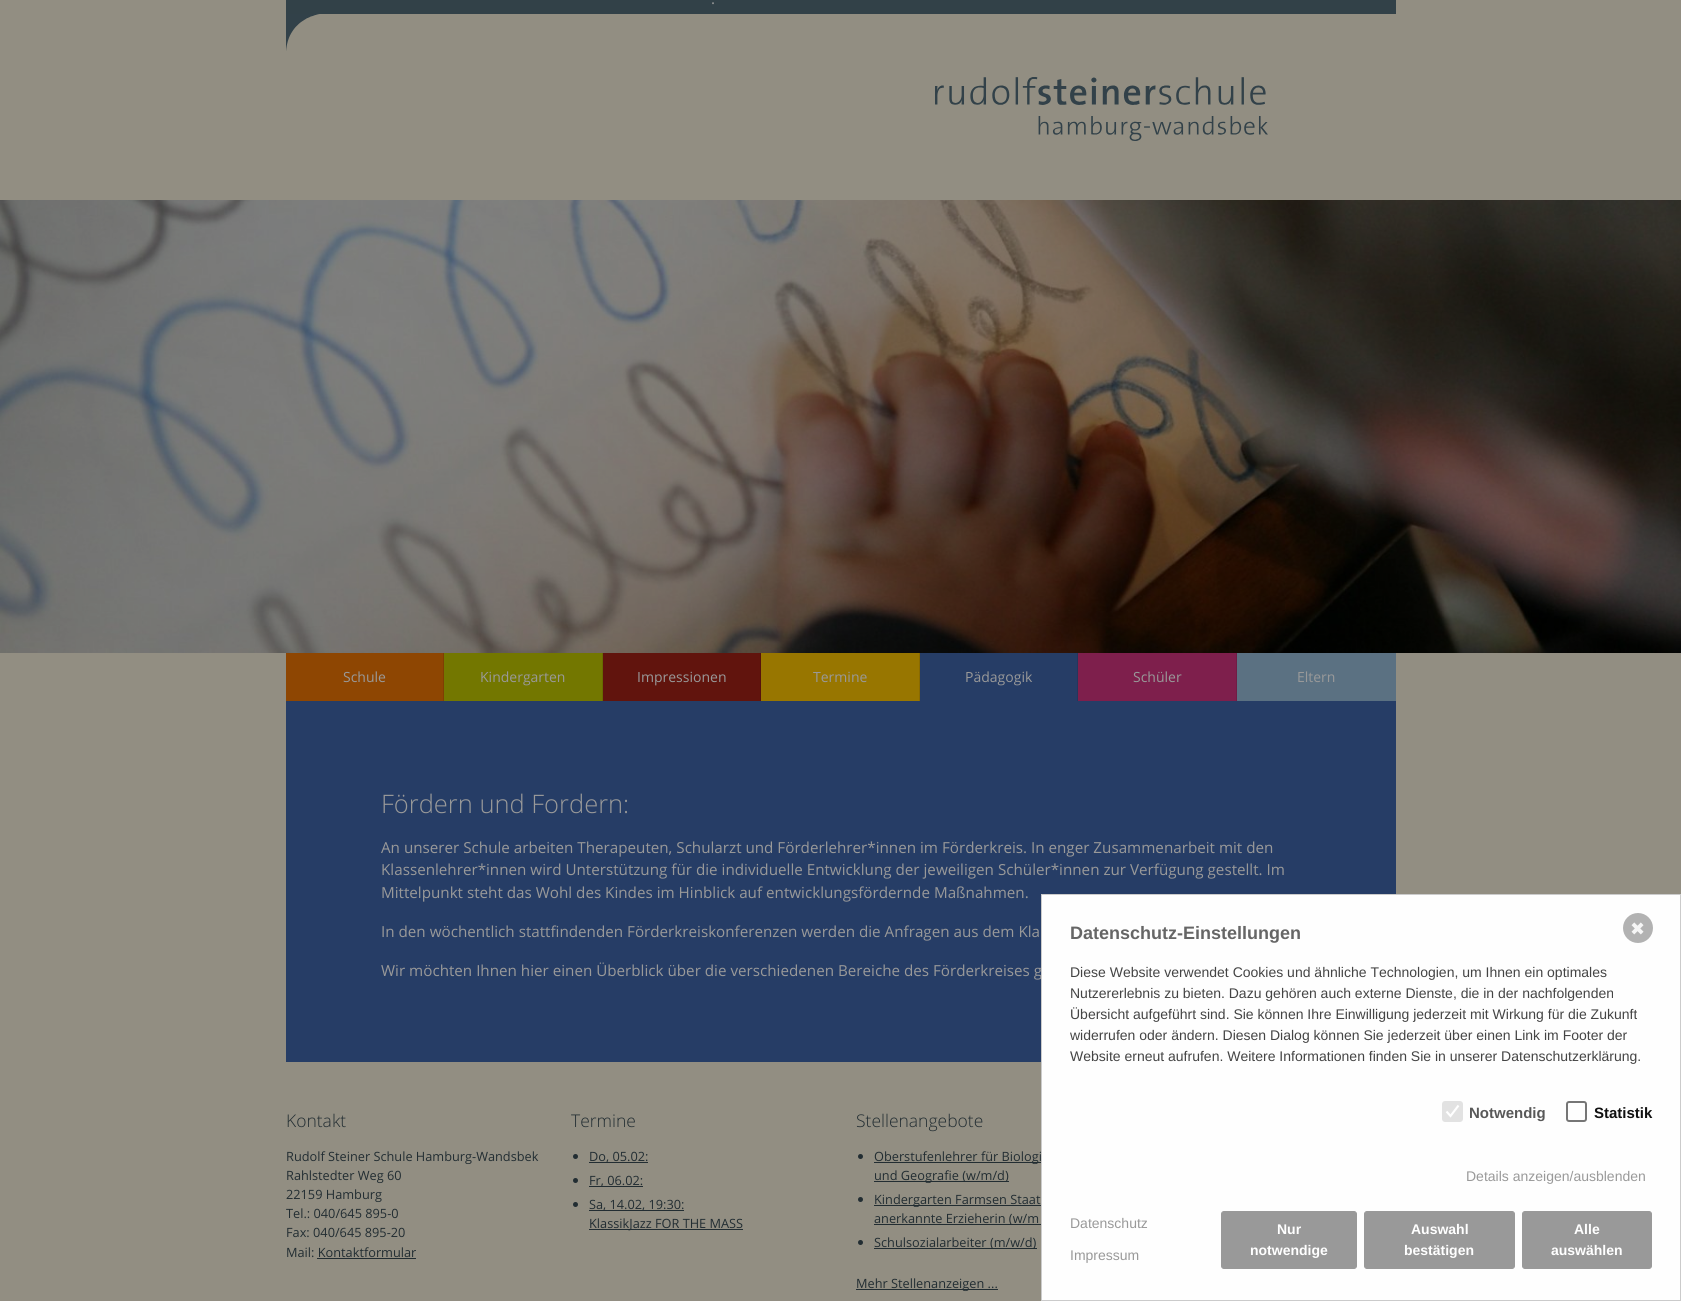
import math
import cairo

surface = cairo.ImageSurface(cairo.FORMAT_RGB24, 1681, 1301)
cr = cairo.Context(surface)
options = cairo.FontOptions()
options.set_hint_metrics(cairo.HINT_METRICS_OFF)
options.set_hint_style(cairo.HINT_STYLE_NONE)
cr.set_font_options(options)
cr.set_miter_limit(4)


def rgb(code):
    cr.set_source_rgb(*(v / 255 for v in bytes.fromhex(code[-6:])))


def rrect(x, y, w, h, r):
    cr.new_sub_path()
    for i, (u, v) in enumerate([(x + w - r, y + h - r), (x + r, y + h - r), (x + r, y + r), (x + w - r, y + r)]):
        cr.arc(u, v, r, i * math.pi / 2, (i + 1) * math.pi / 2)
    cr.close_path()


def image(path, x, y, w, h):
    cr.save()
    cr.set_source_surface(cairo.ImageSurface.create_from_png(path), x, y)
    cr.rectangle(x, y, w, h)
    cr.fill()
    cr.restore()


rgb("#928e82")
cr.paint()
rgb("#324148")
cr.rectangle(286, 0, 1110, 14)
cr.fill()
image("img/1.png", 286, 14, 34, 37)
image("img/2.png", 935, 77, 333, 64)
image("img/3.png", 0, 200, 1681, 453)
for x, y, w, h, color in [
    (286, 653, 157, 48, "#8e4602"),
    (443, 653, 1, 48, "#7f3e02"),
    (444, 653, 158, 48, "#737700"),
    (602, 653, 1, 48, "#686b00"),
    (603, 653, 157, 48, "#61140d"),
    (760, 653, 1, 48, "#57120c"),
    (761, 653, 158, 48, "#987600"),
    (919, 653, 1, 48, "#896a00"),
    (920, 653, 157, 48, "#263d66"),
    (1077, 653, 1, 48, "#23375c"),
    (1078, 653, 158, 48, "#7e1f4c"),
    (1236, 653, 1, 48, "#711c44"),
    (1237, 653, 159, 48, "#5b7182"),
    (286, 701, 1110, 361, "#263d66"),
    (317, 1258, 99, 1, "#222d32"),
]:
    rgb(color)
    cr.rectangle(x, y, w, h)
    cr.fill()
cr.arc(575.5, 1156.5, 2.5, 0, 2 * math.pi)
cr.fill()
cr.rectangle(589, 1162, 59, 1)
cr.fill()
cr.arc(575.5, 1180.5, 2.5, 0, 2 * math.pi)
cr.fill()
cr.rectangle(589, 1186, 54, 1)
cr.fill()
cr.arc(575.5, 1204.5, 2.5, 0, 2 * math.pi)
cr.fill()
cr.rectangle(589, 1210, 95, 1)
cr.fill()
cr.rectangle(589, 1229, 154, 1)
cr.fill()
cr.arc(860.5, 1156.5, 2.5, 0, 2 * math.pi)
cr.fill()
cr.rectangle(874, 1162, 167, 1)
cr.fill()
cr.rectangle(874, 1181, 135, 1)
cr.fill()
cr.arc(860.5, 1199.5, 2.5, 0, 2 * math.pi)
cr.fill()
cr.rectangle(874, 1205, 167, 1)
cr.fill()
cr.rectangle(874, 1224, 167, 1)
cr.fill()
cr.arc(860.5, 1242.5, 2.5, 0, 2 * math.pi)
cr.fill()
cr.rectangle(874, 1248, 163, 1)
cr.fill()
cr.rectangle(856, 1289, 142, 1)
cr.fill()
cr.select_font_face("Open Sans")
cr.set_font_size(15.2)
rgb("#999999")
cr.move_to(711, 4)
cr.show_text(".")
cr.set_font_size(14)
for x, y, s in [
    (343, 682, "Schule"),
    (480, 682, "Kindergarten"),
    (637, 682, "Impressionen"),
    (813, 682, "Termine"),
    (965, 682, "Pädagogik"),
    (1133, 682, "Schüler"),
    (1297, 682, "Eltern"),
]:
    cr.move_to(x, y)
    cr.show_text(s)
cr.select_font_face("Open Sans Light")
cr.set_font_size(25.5)
cr.move_to(381, 813)
cr.show_text("Fördern und Fordern:")
cr.select_font_face("Open Sans")
cr.set_font_size(15.2)
for x, y, s in [
    (381, 853, "An unserer Schule arbeiten Therapeuten, Schularzt und Förderlehrer*innen im Förderkreis. In enger Zusammenarbeit mit den"),
    (381, 875, "Klassenlehrer*innen wird Unterstützung für die individuelle Entwicklung der jeweiligen Schüler*innen zur Verfügung gestellt. Im"),
    (381, 898, "Mittelpunkt steht das Wohl des Kindes im Hinblick auf entwicklungsfördernde Maßnahmen."),
    (381, 937, "In den wöchentlich stattfindenden Förderkreiskonferenzen werden die Anfragen aus dem Kla"),
    (381, 976, "Wir möchten Ihnen hier einen Überblick über die verschiedenen Bereiche des Förderkreises g"),
]:
    cr.move_to(x, y)
    cr.show_text(s)
cr.select_font_face("Open Sans Light")
cr.set_font_size(17.5)
rgb("#222d32")
cr.move_to(286, 1127)
cr.show_text("Kontakt")
cr.select_font_face("Open Sans")
cr.set_font_size(12.75)
for x, y, s in [
    (286, 1161, "Rudolf Steiner Schule Hamburg-Wandsbek"),
    (286, 1180, "Rahlstedter Weg 60"),
    (286, 1199, "22159 Hamburg"),
    (286, 1218, "Tel.: 040/645 895-0"),
    (286, 1237, "Fax: 040/645 895-20"),
    (286, 1257, "Mail: Kontaktformular"),
]:
    cr.move_to(x, y)
    cr.show_text(s)
cr.select_font_face("Open Sans Light")
cr.set_font_size(17.5)
cr.move_to(571, 1127)
cr.show_text("Termine")
cr.select_font_face("Open Sans")
cr.set_font_size(12.75)
for x, y, s in [
    (589, 1161, "Do, 05.02:"),
    (589, 1185, "Fr, 06.02:"),
    (589, 1209, "Sa, 14.02, 19:30:"),
    (589, 1228, "KlassikJazz FOR THE MASS"),
]:
    cr.move_to(x, y)
    cr.show_text(s)
cr.select_font_face("Open Sans Light")
cr.set_font_size(17.5)
cr.move_to(856, 1127)
cr.show_text("Stellenangebote")
cr.select_font_face("Open Sans")
cr.set_font_size(12.75)
for x, y, s in [
    (874, 1161, "Oberstufenlehrer für Biologi"),
    (874, 1180, "und Geografie (w/m/d)"),
    (874, 1204, "Kindergarten Farmsen Staat"),
    (874, 1223, "anerkannte Erzieherin (w/m"),
    (874, 1247, "Schulsozialarbeiter (m/w/d)"),
    (856, 1288, "Mehr Stellenanzeigen ..."),
]:
    cr.move_to(x, y)
    cr.show_text(s)
rgb("#fefefe")
cr.rectangle(1041.5, 894.5, 639, 406)
cr.fill_preserve()
rgb("#cbcbcb")
cr.set_line_width(1)
cr.stroke()
rgb("#b2b2b2")
cr.arc(1638, 928, 14, 0, 2 * math.pi)
cr.fill_preserve()
cr.set_line_width(2)
cr.stroke()
cr.select_font_face("DejaVu Sans")
cr.set_font_size(18)
rgb("#f6f6f6")
cr.move_to(1630, 935)
cr.show_text("✖")
cr.select_font_face("Liberation Sans", cairo.FONT_SLANT_NORMAL, cairo.FONT_WEIGHT_BOLD)
rgb("#666666")
cr.move_to(1070, 939)
cr.show_text("Datenschutz-Einstellungen")
cr.select_font_face("Liberation Sans")
cr.set_font_size(14)
rgb("#444444")
for x, y, s in [
    (1070, 977, "Diese Website verwendet Cookies und ähnliche Technologien, um Ihnen ein optimales"),
    (1070, 998, "Nutzererlebnis zu bieten. Dazu gehören auch externe Dienste, die in der nachfolgenden"),
    (1070, 1019, "Übersicht aufgeführt sind. Sie können Ihre Einwilligung jederzeit mit Wirkung für die Zukunft"),
    (1070, 1040, "widerrufen oder ändern. Diesen Dialog können Sie jederzeit über einen Link im Footer der"),
    (1070, 1061, "Website erneut aufrufen. Weitere Informationen finden Sie in unserer Datenschutzerklärung."),
]:
    cr.move_to(x, y)
    cr.show_text(s)
rgb("#e2e2e2")
rrect(1442, 1101, 21, 21, 3)
cr.fill()
cr.new_path()
cr.move_to(1446.5, 1111.5)
cr.line_to(1450.5, 1116)
cr.line_to(1458.5, 1105.5)
rgb("#ffffff")
cr.set_line_width(2.1)
cr.stroke()
cr.select_font_face("Liberation Sans", cairo.FONT_SLANT_NORMAL, cairo.FONT_WEIGHT_BOLD)
cr.set_font_size(15)
rgb("#585858")
cr.move_to(1469, 1118)
cr.show_text("Notwendig")
rrect(1567, 1102, 19, 19, 2)
rgb("#767676")
cr.set_line_width(2)
cr.stroke()
rgb("#111111")
cr.move_to(1594, 1118)
cr.show_text("Statistik")
cr.select_font_face("Liberation Sans")
cr.set_font_size(14)
rgb("#999999")
for x, y, s in [
    (1466, 1181, "Details anzeigen/ausblenden"),
    (1070, 1228, "Datenschutz"),
    (1070, 1260, "Impressum"),
]:
    cr.move_to(x, y)
    cr.show_text(s)
rrect(1221.5, 1211.5, 135, 57, 2.5)
cr.fill_preserve()
cr.set_line_width(1)
cr.stroke()
cr.select_font_face("Liberation Sans", cairo.FONT_SLANT_NORMAL, cairo.FONT_WEIGHT_BOLD)
rgb("#ffffff")
cr.move_to(1277, 1234)
cr.show_text("Nur")
cr.move_to(1250, 1255)
cr.show_text("notwendige")
rgb("#999999")
rrect(1364.5, 1211.5, 150, 57, 2.5)
cr.fill_preserve()
cr.stroke()
rgb("#ffffff")
cr.move_to(1411, 1234)
cr.show_text("Auswahl")
cr.move_to(1404, 1255)
cr.show_text("bestätigen")
rgb("#999999")
rrect(1522.5, 1211.5, 129, 57, 2.5)
cr.fill_preserve()
cr.stroke()
rgb("#ffffff")
cr.move_to(1574, 1234)
cr.show_text("Alle")
cr.move_to(1551, 1255)
cr.show_text("auswählen")
surface.write_to_png("page.png")
